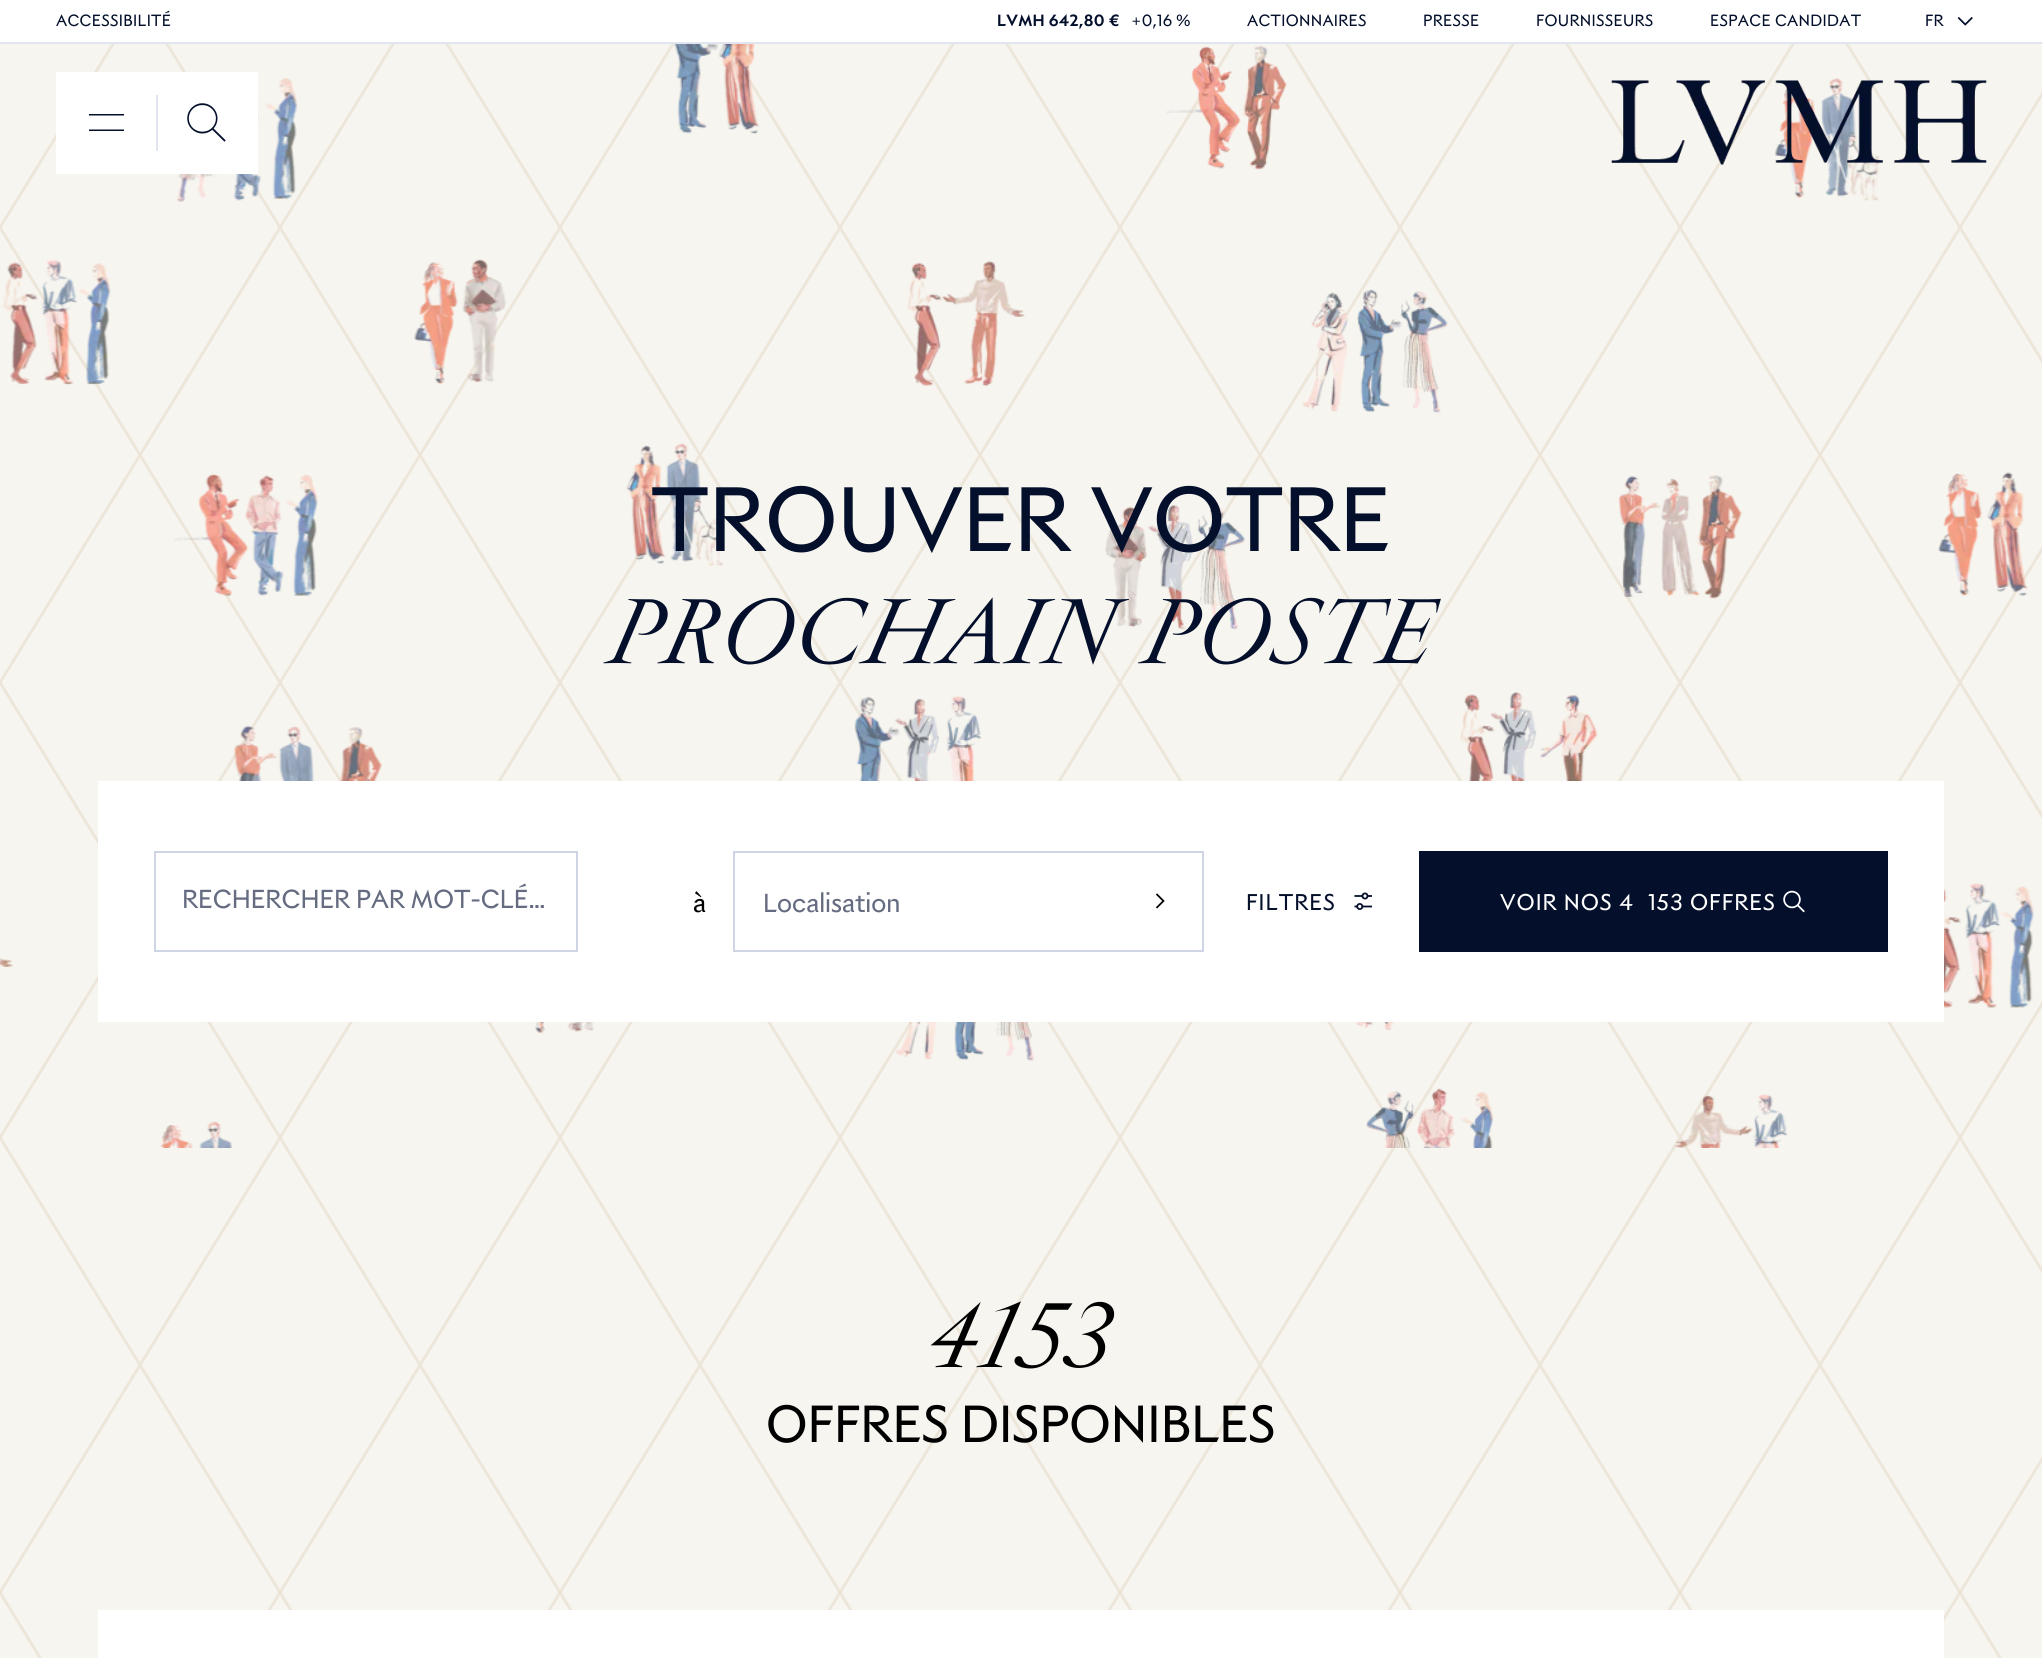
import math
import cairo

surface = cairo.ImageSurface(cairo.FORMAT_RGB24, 2042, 1658)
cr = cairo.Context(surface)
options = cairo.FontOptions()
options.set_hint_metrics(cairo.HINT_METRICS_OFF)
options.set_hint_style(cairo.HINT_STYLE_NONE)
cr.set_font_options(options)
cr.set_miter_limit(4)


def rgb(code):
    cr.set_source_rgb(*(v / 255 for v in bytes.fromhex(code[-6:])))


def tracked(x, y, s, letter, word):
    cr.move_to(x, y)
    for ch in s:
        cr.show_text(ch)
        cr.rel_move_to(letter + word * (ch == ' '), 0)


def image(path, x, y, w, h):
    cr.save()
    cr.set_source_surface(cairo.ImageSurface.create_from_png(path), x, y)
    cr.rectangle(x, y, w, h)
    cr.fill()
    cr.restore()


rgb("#f7f5ef")
cr.paint()
rgb("#ffffff")
cr.rectangle(0, 0, 2042, 42)
cr.fill()
rgb("#e0e5f0")
cr.rectangle(0, 42, 2042, 2)
cr.fill()
image("img/1.png", 1957, 17, 16, 9)
image("img/8.png", 0, 44, 2042, 1614)
image("img/4.png", 0, 44, 2034, 1104)
for x, y, w, h, color in [
    (58, 74, 198, 98, "#ffffff"),
    (56, 72, 201, 2, "#ffffff"),
    (56, 172, 102, 2, "#ffffff"),
    (56, 72, 2, 101, "#ffffff"),
]:
    rgb(color)
    cr.rectangle(x, y, w, h)
    cr.fill()
rgb("#030f2b")
cr.set_fill_rule(cairo.FILL_RULE_EVEN_ODD)
cr.new_path()
cr.move_to(89, 115.5)
cr.line_to(124, 115.5)
cr.line_to(124, 114)
cr.line_to(89, 114)
cr.close_path()
cr.move_to(89, 131)
cr.line_to(124, 131)
cr.line_to(124, 129.5)
cr.line_to(89, 129.5)
cr.close_path()
cr.fill()
for x, y, w, h, color in [
    (156, 95, 2, 56, "#e0e5f0"),
    (256, 72, 2, 101, "#ffffff"),
    (158, 172, 99, 2, "#ffffff"),
]:
    rgb(color)
    cr.rectangle(x, y, w, h)
    cr.fill()
image("img/2.png", 187, 103, 39, 39)
image("img/3.png", 1611, 80, 376, 85)
cr.rectangle(98, 781, 1846, 241)
cr.fill()
cr.rectangle(155, 852, 422, 99)
rgb("#ced5e4")
cr.stroke()
cr.rectangle(734, 852, 469, 99)
cr.stroke()
image("img/5.png", 1155, 893, 10, 16)
image("img/6.png", 1354, 892, 18, 18)
rgb("#030f2b")
cr.rectangle(1419, 851, 469, 101)
cr.fill()
image("img/7.png", 1783, 890, 22, 23)
rgb("#ffffff")
cr.rectangle(98, 1610, 1846, 48)
cr.fill()
cr.select_font_face("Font")
cr.set_font_size(17.5)
rgb("#030f2b")
tracked(56, 26, "ACCESSIBILITÉ", 0.3, 0)
cr.select_font_face("Font", cairo.FONT_SLANT_NORMAL, cairo.FONT_WEIGHT_BOLD)
tracked(997, 26, "LVMH 642,80 €", 0.3, 0)
cr.select_font_face("Font")
for x, y, s in [
    (1131, 26, "+0,16 %"),
    (1247, 26, "ACTIONNAIRES"),
    (1423, 26, "PRESSE"),
    (1536, 26, "FOURNISSEURS"),
    (1710, 26, "ESPACE CANDIDAT"),
    (1925, 26, "FR"),
]:
    tracked(x, y, s, 0.3, 0)
cr.set_font_size(98)
cr.move_to(651, 551)
cr.show_text("TROUVER VOTRE")
cr.select_font_face("Font", cairo.FONT_SLANT_ITALIC)
cr.move_to(608, 663)
cr.show_text("PROCHAIN POSTE")
cr.select_font_face("Font")
cr.set_font_size(28)
rgb("#656b80")
cr.move_to(182, 908)
cr.show_text("RECHERCHER PAR MOT-CLÉ…")
rgb("#000000")
cr.move_to(693, 912)
cr.show_text("à")
rgb("#656b80")
cr.move_to(763, 912)
cr.show_text("Localisation")
cr.set_font_size(24.5)
rgb("#030f2b")
tracked(1246, 910, "FILTRES", 1, 0)
rgb("#ffffff")
tracked(1500, 910, "VOIR NOS 4 153 OFFRES", 1, 0)
cr.select_font_face("Font", cairo.FONT_SLANT_ITALIC)
cr.set_font_size(98)
rgb("#000000")
cr.move_to(930, 1367)
cr.show_text("4153")
cr.select_font_face("Font")
cr.set_font_size(56)
cr.move_to(766, 1442)
cr.show_text("OFFRES DISPONIBLES")
surface.write_to_png("page.png")
